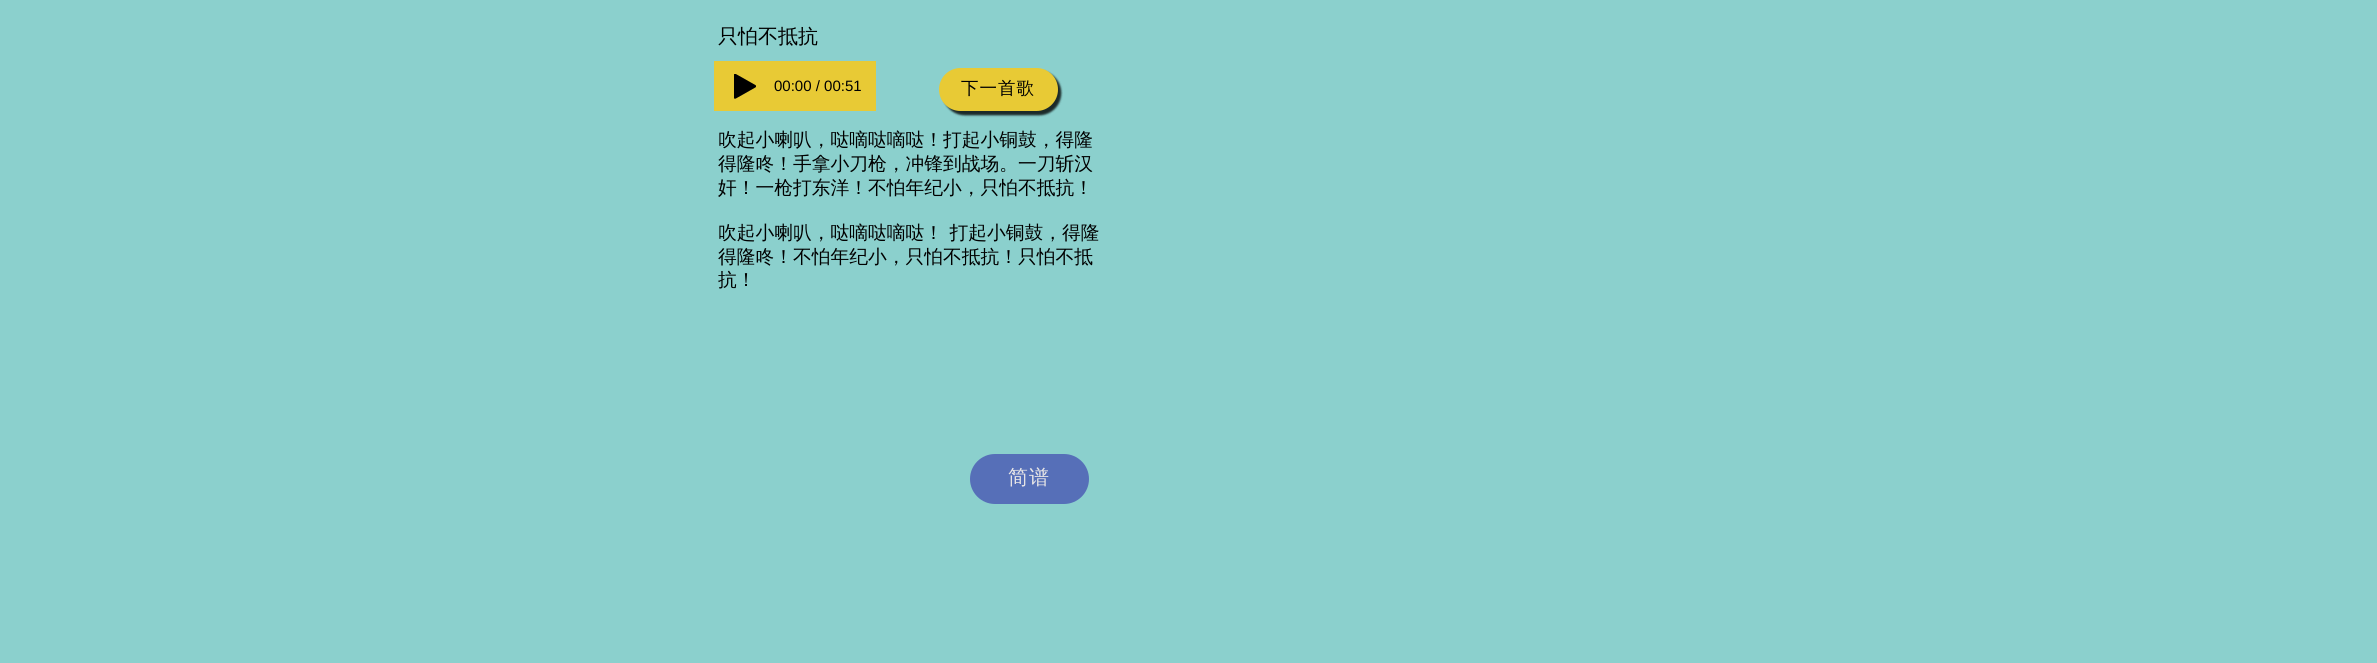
import math
import cairo

surface = cairo.ImageSurface(cairo.FORMAT_RGB24, 2377, 663)
cr = cairo.Context(surface)
options = cairo.FontOptions()
options.set_hint_metrics(cairo.HINT_METRICS_OFF)
options.set_hint_style(cairo.HINT_STYLE_NONE)
cr.set_font_options(options)
cr.set_miter_limit(4)


def rgb(code):
    cr.set_source_rgb(*(v / 255 for v in bytes.fromhex(code[-6:])))


def tracked(x, y, s, letter, word):
    cr.move_to(x, y)
    for ch in s:
        cr.show_text(ch)
        cr.rel_move_to(letter + word * (ch == ' '), 0)


def rrect(x, y, w, h, r):
    cr.new_sub_path()
    for i, (u, v) in enumerate([(x + w - r, y + h - r), (x + r, y + h - r), (x + r, y + r), (x + w - r, y + r)]):
        cr.arc(u, v, r, i * math.pi / 2, (i + 1) * math.pi / 2)
    cr.close_path()


def soft_shadow(x, y, w, h, r, blur, alpha):
    cr.push_group_with_content(cairo.CONTENT_ALPHA)
    cr.set_operator(cairo.OPERATOR_SOURCE)
    for i in range(15, -16, -2):
        e = blur * i / 6
        if min(w, h) + 2 * e > 0:
            cr.set_source_rgba(0, 0, 0, alpha * math.erfc((i - 1) / 8.5) / 2)
            rrect(x - e, y - e, w + 2 * e, h + 2 * e, max(0, min(r + e + blur * .6, min(w, h) / 2 + e)))
            cr.fill()
    cr.mask(cr.pop_group())


def image(path, x, y, w, h):
    cr.save()
    cr.set_source_surface(cairo.ImageSurface.create_from_png(path), x, y)
    cr.rectangle(x, y, w, h)
    cr.fill()
    cr.restore()


rgb("#8bd0cd")
cr.paint()
rgb("#e8ca35")
cr.rectangle(714, 61, 162, 50)
cr.fill()
image("img/1.png", 734, 74, 22, 25)
rgb("#000000")
soft_shadow(943, 71, 118, 44, 22, 1, 0.57)
soft_shadow(943, 71, 118, 44, 22, 1, 0.54)
rgb("#e8ca35")
rrect(939, 68, 119, 43, 21.5)
cr.fill()
rgb("#566fb8")
rrect(970, 454, 119, 50, 25)
cr.fill()
cr.select_font_face("WenQuanYi Zen Hei Medium")
cr.set_font_size(20)
rgb("#000000")
cr.move_to(718, 43)
cr.show_text("只怕不抵抗")
cr.select_font_face("Liberation Sans")
cr.set_font_size(15)
cr.move_to(774, 91)
cr.show_text("00:00 / 00:51")
cr.select_font_face("WenQuanYi Zen Hei Medium")
cr.set_font_size(17.5)
tracked(961, 94, "下一首歌", 1, 0)
cr.set_font_size(18.75)
for x, y, s in [
    (718, 146, "吹起小喇叭，哒嘀哒嘀哒！打起小铜鼓，得隆"),
    (718, 170, "得隆咚！手拿小刀枪，冲锋到战场。一刀斩汉"),
    (718, 194, "奸！一枪打东洋！不怕年纪小，只怕不抵抗！"),
]:
    cr.move_to(x, y)
    cr.show_text(s)
tracked(718, 239, "吹起小喇叭，哒嘀哒嘀哒！ 打起小铜鼓，得隆", 0, 1)
cr.move_to(718, 263)
cr.show_text("得隆咚！不怕年纪小，只怕不抵抗！只怕不抵")
cr.move_to(718, 286)
cr.show_text("抗！")
cr.set_font_size(20)
rgb("#e8e6e6")
tracked(1008, 484, "简谱", 1, 0)
surface.write_to_png("page.png")
